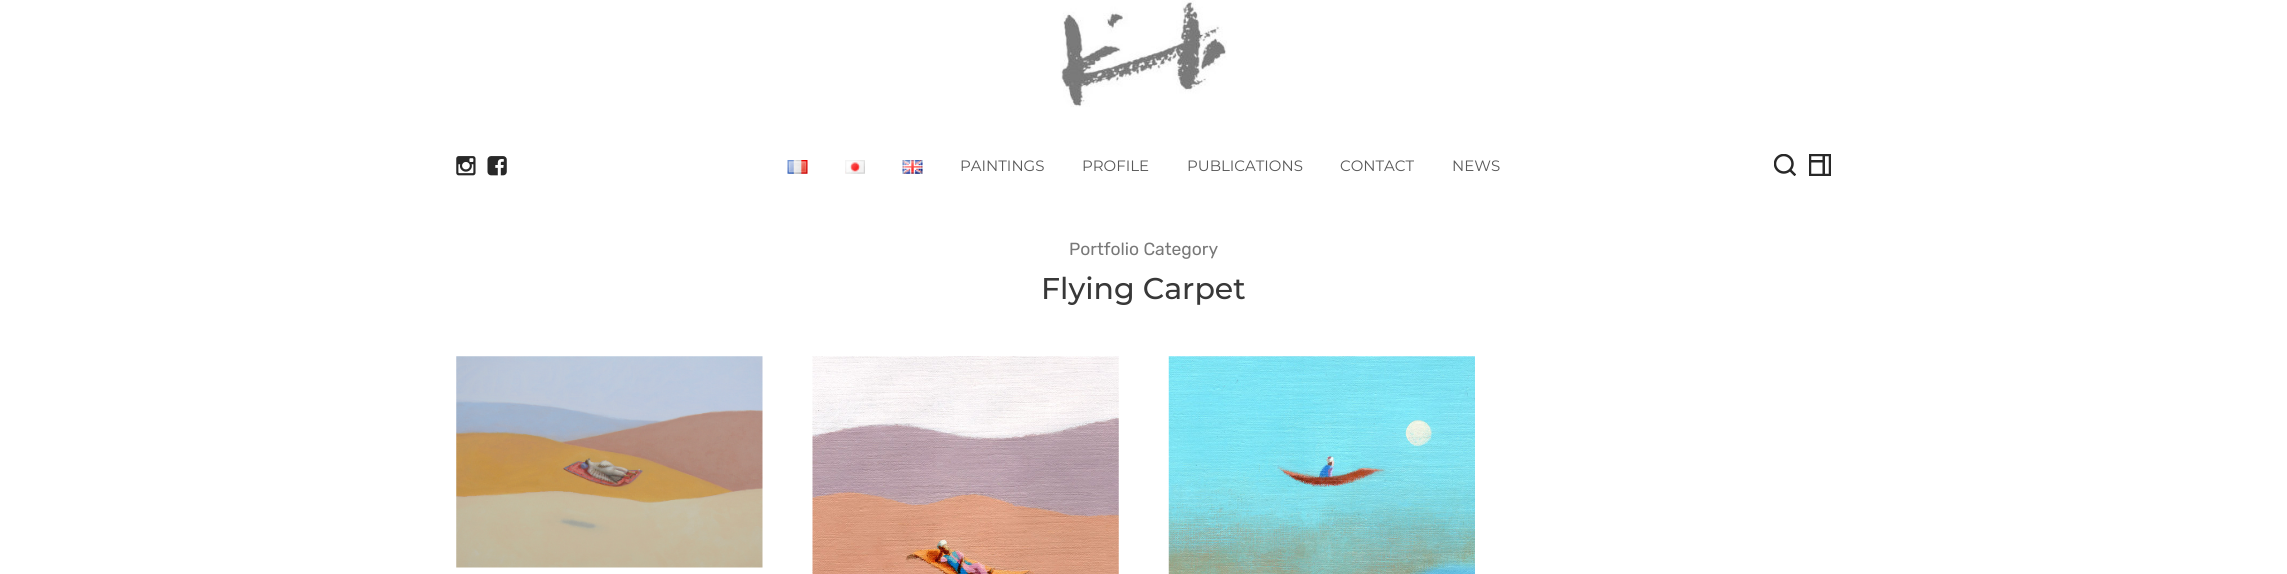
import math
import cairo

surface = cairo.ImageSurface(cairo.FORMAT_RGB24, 2287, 574)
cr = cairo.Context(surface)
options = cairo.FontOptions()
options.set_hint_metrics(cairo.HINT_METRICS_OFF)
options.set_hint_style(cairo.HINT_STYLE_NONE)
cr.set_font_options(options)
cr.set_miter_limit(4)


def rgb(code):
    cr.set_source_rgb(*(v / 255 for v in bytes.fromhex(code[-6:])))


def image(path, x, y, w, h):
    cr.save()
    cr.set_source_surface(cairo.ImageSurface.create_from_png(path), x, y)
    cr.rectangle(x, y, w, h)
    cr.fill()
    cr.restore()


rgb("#ffffff")
cr.paint()
image("img/1.png", 1060, 0, 167, 107)
image("img/2.png", 456, 156, 20, 20)
image("img/3.png", 487, 156, 20, 20)
image("img/4.png", 787, 160, 21, 14)
image("img/5.png", 845, 160, 20, 14)
image("img/6.png", 902, 160, 21, 14)
image("img/7.png", 1774, 154, 22, 22)
image("img/8.png", 1809, 154, 22, 22)
image("img/9.png", 456, 356, 307, 212)
image("img/10.png", 812, 356, 307, 218)
image("img/11.png", 1168, 356, 307, 218)
cr.select_font_face("Montserrat")
cr.set_font_size(15)
rgb("#585858")
for x, y, s in [
    (960, 171, "PAINTINGS"),
    (1082, 171, "PROFILE"),
    (1187, 171, "PUBLICATIONS"),
    (1340, 171, "CONTACT"),
    (1452, 171, "NEWS"),
]:
    cr.move_to(x, y)
    cr.show_text(s)
cr.select_font_face("Rubik")
cr.set_font_size(17.5)
rgb("#787878")
cr.move_to(1069, 255)
cr.show_text("Portfolio Category")
cr.select_font_face("Montserrat Medium")
cr.set_font_size(30)
rgb("#383838")
cr.move_to(1041, 299)
cr.show_text("Flying Carpet")
surface.write_to_png("page.png")
